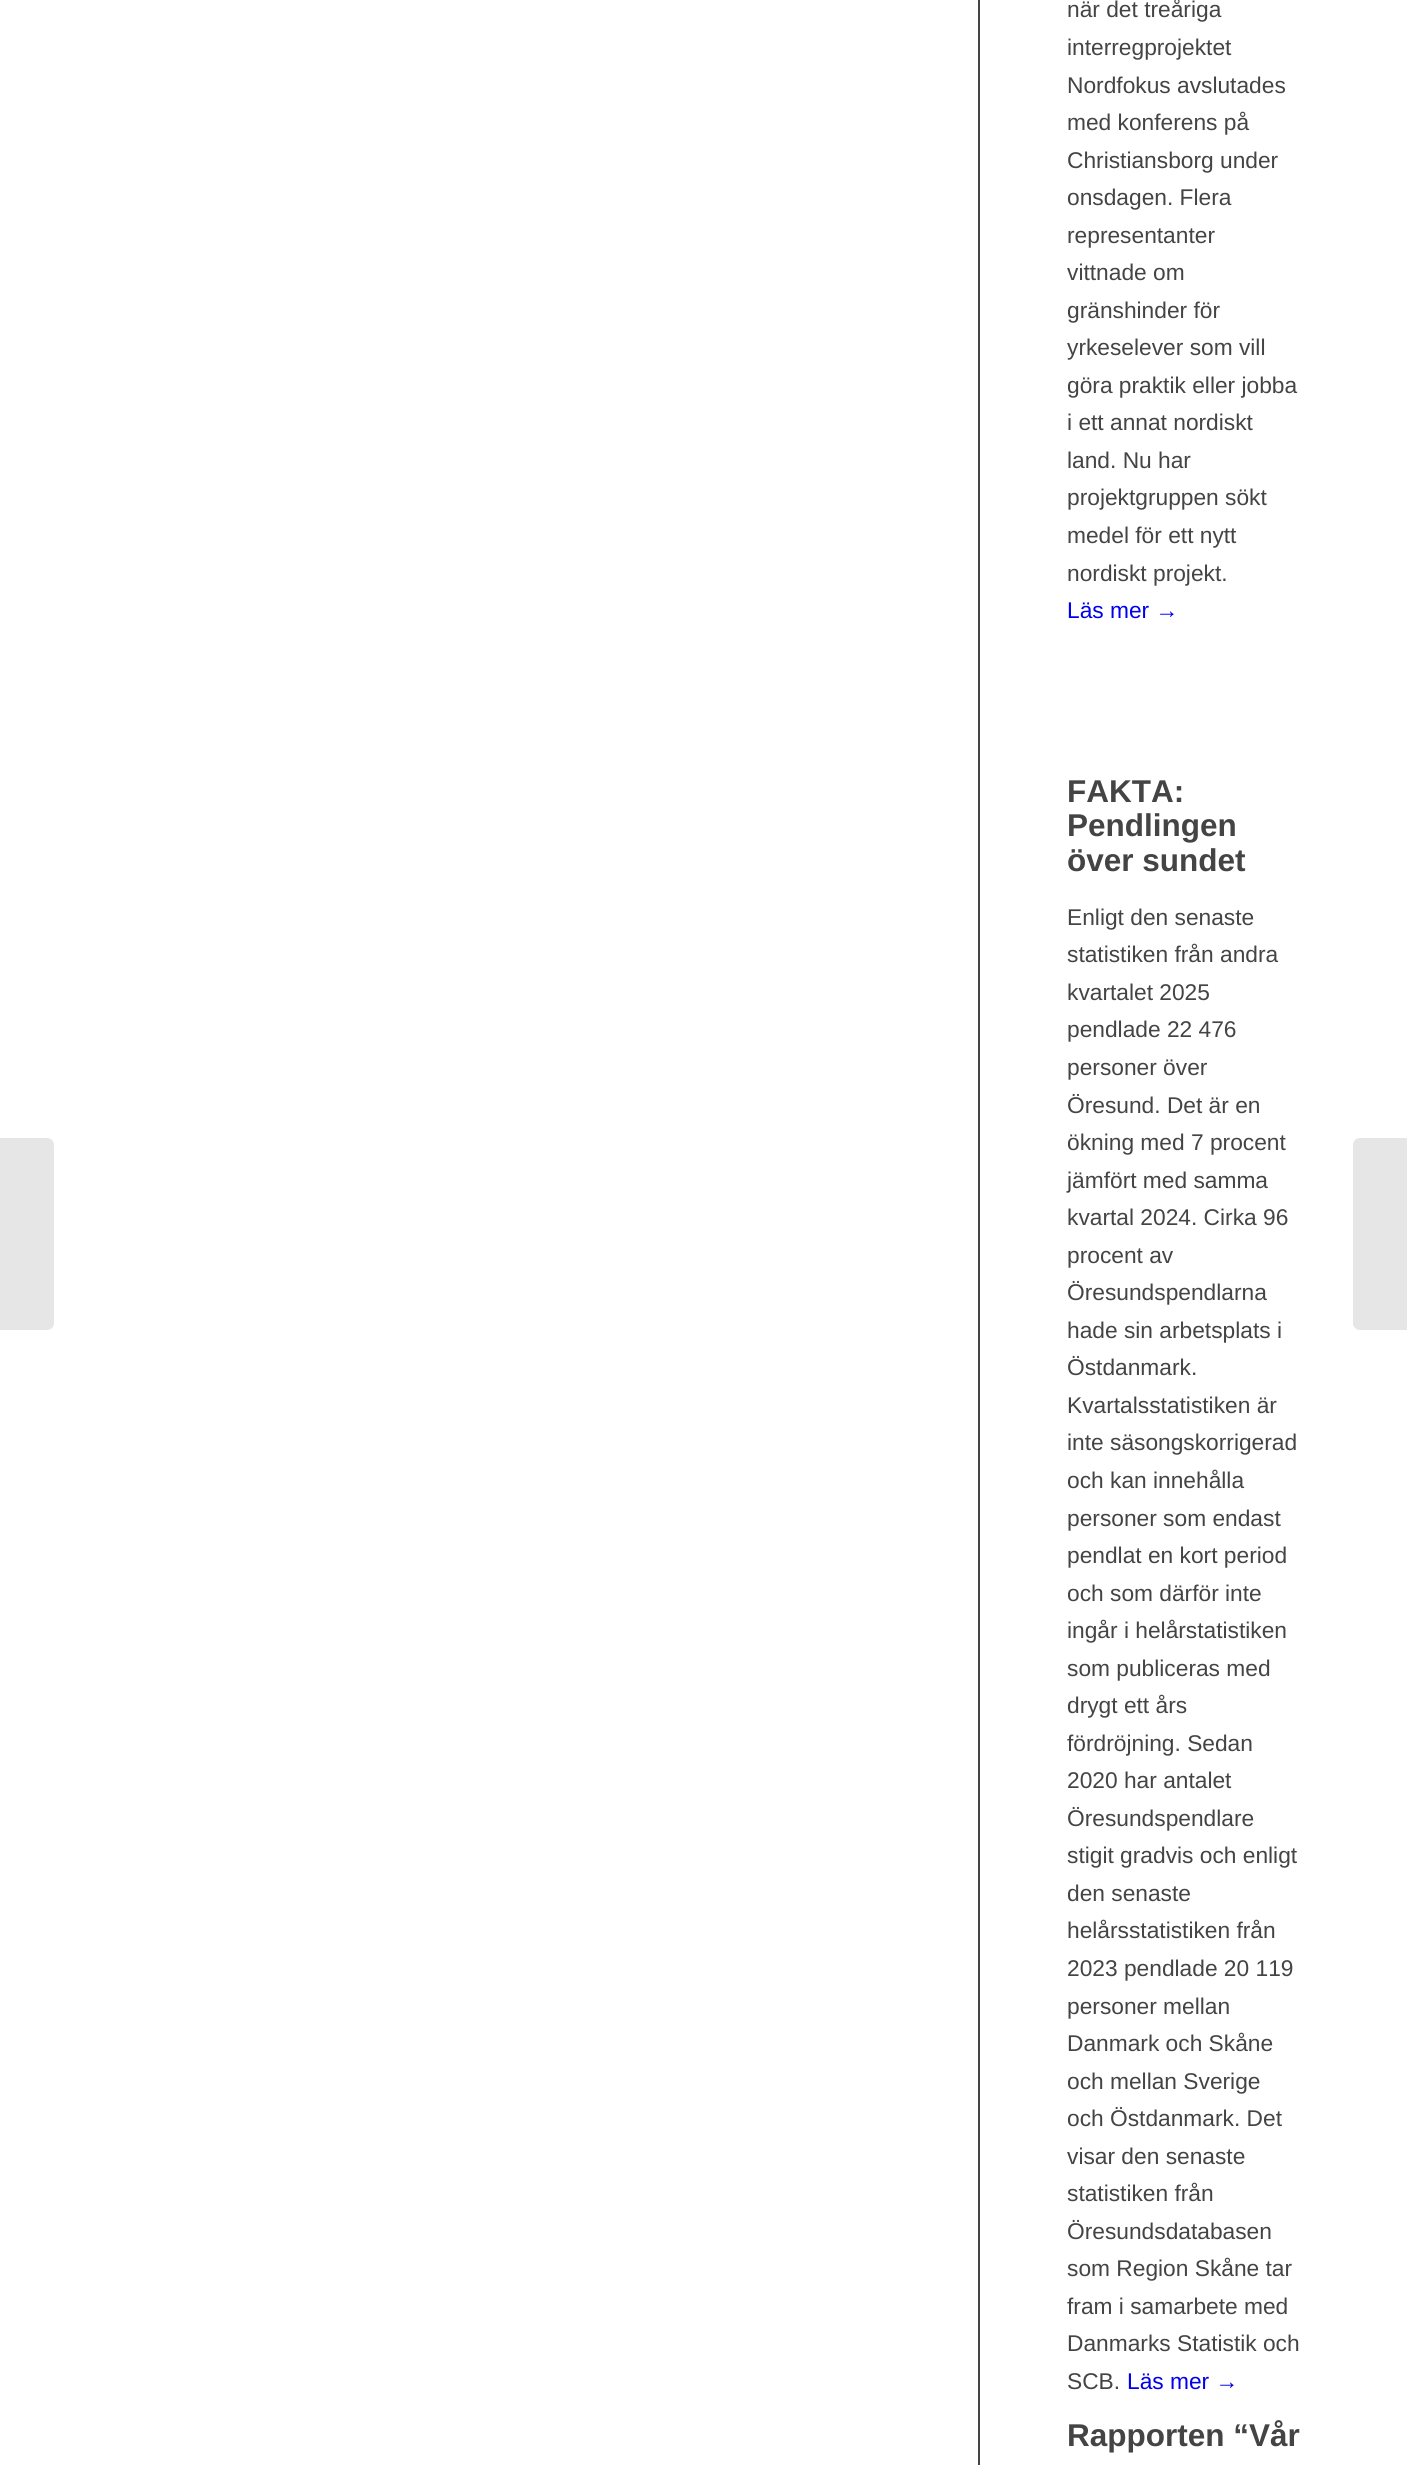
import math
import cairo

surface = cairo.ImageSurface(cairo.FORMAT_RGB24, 1407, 2465)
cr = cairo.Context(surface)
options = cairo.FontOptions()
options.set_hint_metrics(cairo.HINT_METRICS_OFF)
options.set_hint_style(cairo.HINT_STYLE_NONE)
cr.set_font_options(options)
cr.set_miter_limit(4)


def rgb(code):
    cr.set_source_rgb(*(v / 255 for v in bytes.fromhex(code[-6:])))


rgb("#ffffff")
cr.paint()
rgb("#e6e6e6")
cr.new_path()
cr.move_to(0, 1138)
cr.line_to(47, 1138)
cr.curve_to(51, 1138, 54, 1141, 54, 1145)
cr.line_to(54, 1323)
cr.curve_to(54, 1327, 51, 1330, 47, 1330)
cr.line_to(0, 1330)
cr.close_path()
cr.fill()
rgb("#444444")
cr.rectangle(978, 0, 2, 2465)
cr.fill()
rgb("#e6e6e6")
cr.new_path()
cr.move_to(1360, 1138)
cr.line_to(1407, 1138)
cr.line_to(1407, 1330)
cr.line_to(1360, 1330)
cr.curve_to(1356, 1330, 1353, 1327, 1353, 1323)
cr.line_to(1353, 1145)
cr.curve_to(1353, 1141, 1356, 1138, 1360, 1138)
cr.close_path()
cr.fill()
cr.select_font_face("Liberation Sans")
cr.set_font_size(22.75)
rgb("#444444")
for x, y, s in [
    (1067, 17, "när det treåriga"),
    (1067, 55, "interregprojektet"),
    (1067, 93, "Nordfokus avslutades"),
    (1067, 130, "med konferens på"),
    (1067, 168, "Christiansborg under"),
    (1067, 205, "onsdagen. Flera"),
    (1067, 243, "representanter"),
    (1067, 280, "vittnade om"),
    (1067, 318, "gränshinder för"),
    (1067, 355, "yrkeselever som vill"),
    (1067, 393, "göra praktik eller jobba"),
    (1067, 430, "i ett annat nordiskt"),
    (1067, 468, "land. Nu har"),
    (1067, 505, "projektgruppen sökt"),
    (1067, 543, "medel för ett nytt"),
    (1067, 581, "nordiskt projekt."),
]:
    cr.move_to(x, y)
    cr.show_text(s)
rgb("#0000ee")
cr.move_to(1067, 618)
cr.show_text("Läs mer →")
cr.select_font_face("Liberation Sans", cairo.FONT_SLANT_NORMAL, cairo.FONT_WEIGHT_BOLD)
cr.set_font_size(31.5)
rgb("#444444")
for x, y, s in [
    (1067, 802, "FAKTA:"),
    (1067, 836, "Pendlingen"),
    (1067, 871, "över sundet"),
]:
    cr.move_to(x, y)
    cr.show_text(s)
cr.select_font_face("Liberation Sans")
cr.set_font_size(22.75)
for x, y, s in [
    (1067, 925, "Enligt den senaste"),
    (1067, 962, "statistiken från andra"),
    (1067, 1000, "kvartalet 2025"),
    (1067, 1037, "pendlade 22 476"),
    (1067, 1075, "personer över"),
    (1067, 1113, "Öresund. Det är en"),
    (1067, 1150, "ökning med 7 procent"),
    (1067, 1188, "jämfört med samma"),
    (1067, 1225, "kvartal 2024. Cirka 96"),
    (1067, 1263, "procent av"),
    (1067, 1300, "Öresundspendlarna"),
    (1067, 1338, "hade sin arbetsplats i"),
    (1067, 1375, "Östdanmark."),
    (1067, 1413, "Kvartalsstatistiken är"),
    (1067, 1450, "inte säsongskorrigerad"),
    (1067, 1488, "och kan innehålla"),
    (1067, 1526, "personer som endast"),
    (1067, 1563, "pendlat en kort period"),
    (1067, 1601, "och som därför inte"),
    (1067, 1638, "ingår i helårstatistiken"),
    (1067, 1676, "som publiceras med"),
    (1067, 1713, "drygt ett års"),
    (1067, 1751, "fördröjning. Sedan"),
    (1067, 1788, "2020 har antalet"),
    (1067, 1826, "Öresundspendlare"),
    (1067, 1863, "stigit gradvis och enligt"),
    (1067, 1901, "den senaste"),
    (1067, 1938, "helårsstatistiken från"),
    (1067, 1976, "2023 pendlade 20 119"),
    (1067, 2014, "personer mellan"),
    (1067, 2051, "Danmark och Skåne"),
    (1067, 2089, "och mellan Sverige"),
    (1067, 2126, "och Östdanmark. Det"),
    (1067, 2164, "visar den senaste"),
    (1067, 2201, "statistiken från"),
    (1067, 2239, "Öresundsdatabasen"),
    (1067, 2276, "som Region Skåne tar"),
    (1067, 2314, "fram i samarbete med"),
    (1067, 2351, "Danmarks Statistik och"),
    (1067, 2389, "SCB."),
]:
    cr.move_to(x, y)
    cr.show_text(s)
rgb("#0000ee")
cr.move_to(1127, 2389)
cr.show_text("Läs mer →")
cr.select_font_face("Liberation Sans", cairo.FONT_SLANT_NORMAL, cairo.FONT_WEIGHT_BOLD)
cr.set_font_size(31.5)
rgb("#444444")
cr.move_to(1067, 2446)
cr.show_text("Rapporten “Vår")
surface.write_to_png("page.png")
